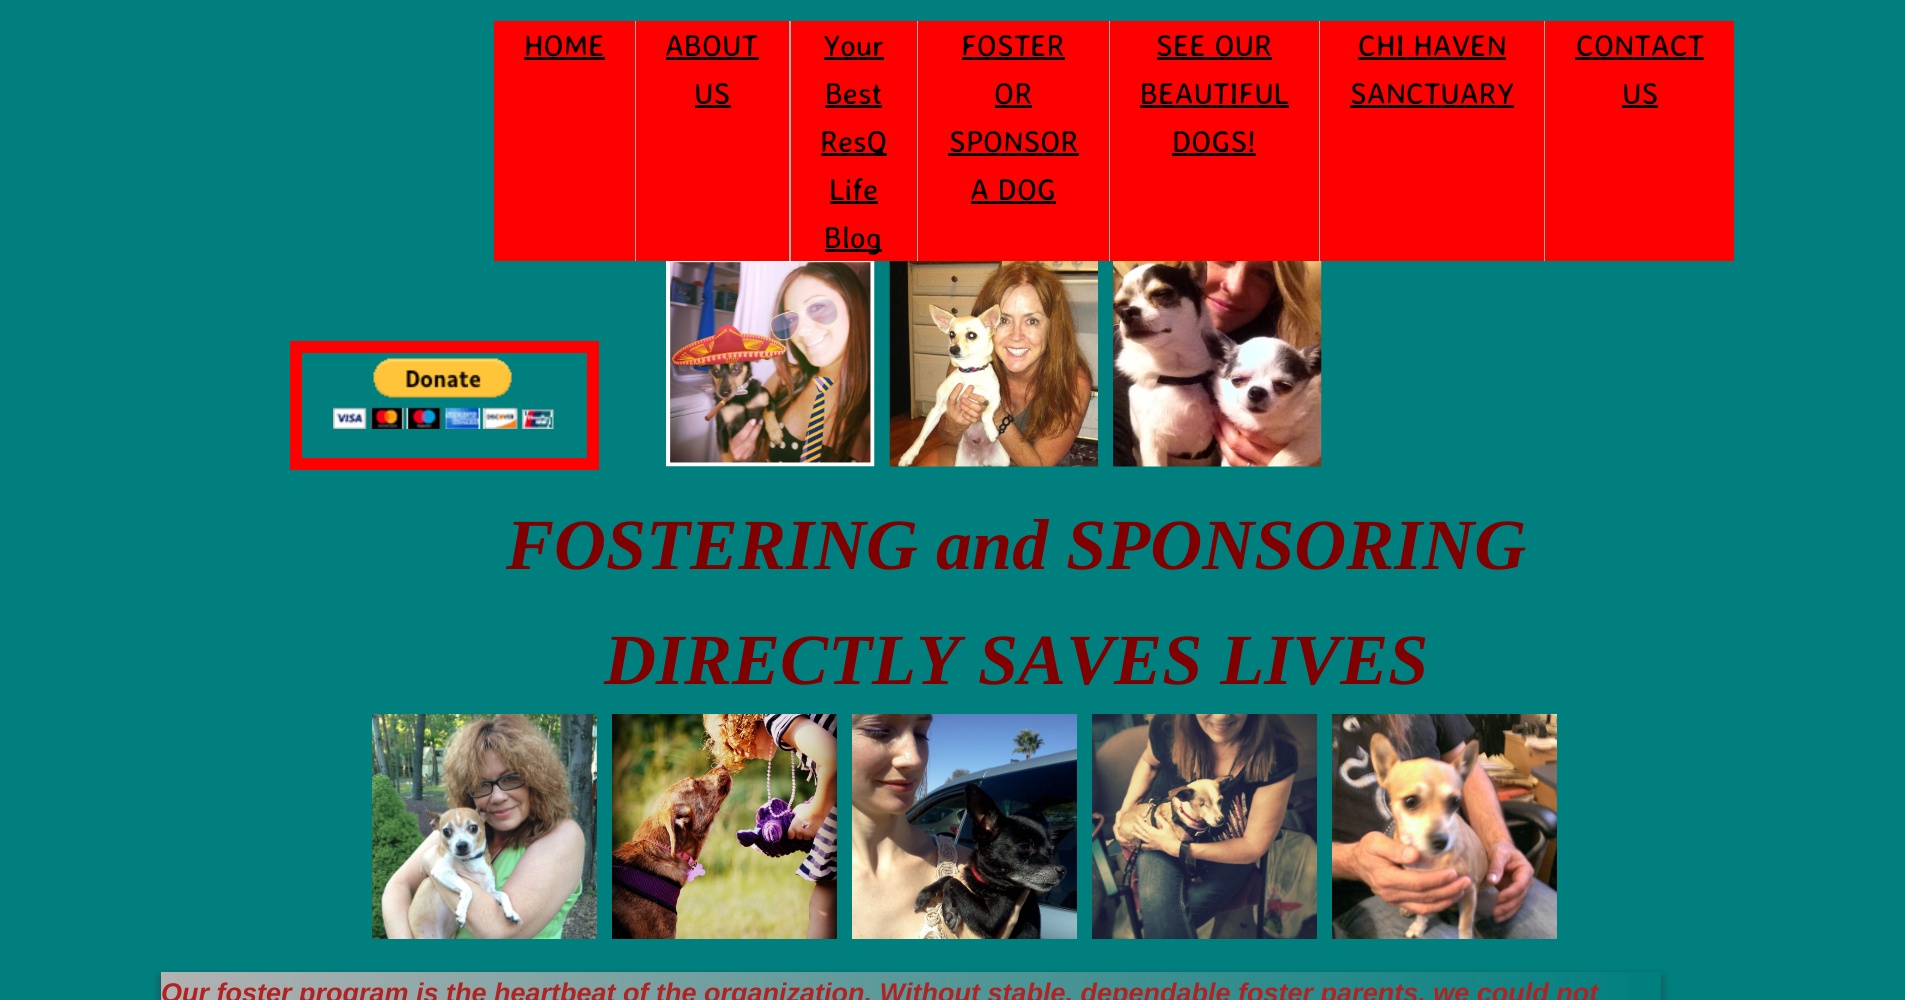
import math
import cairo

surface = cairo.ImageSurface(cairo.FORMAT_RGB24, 1905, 1000)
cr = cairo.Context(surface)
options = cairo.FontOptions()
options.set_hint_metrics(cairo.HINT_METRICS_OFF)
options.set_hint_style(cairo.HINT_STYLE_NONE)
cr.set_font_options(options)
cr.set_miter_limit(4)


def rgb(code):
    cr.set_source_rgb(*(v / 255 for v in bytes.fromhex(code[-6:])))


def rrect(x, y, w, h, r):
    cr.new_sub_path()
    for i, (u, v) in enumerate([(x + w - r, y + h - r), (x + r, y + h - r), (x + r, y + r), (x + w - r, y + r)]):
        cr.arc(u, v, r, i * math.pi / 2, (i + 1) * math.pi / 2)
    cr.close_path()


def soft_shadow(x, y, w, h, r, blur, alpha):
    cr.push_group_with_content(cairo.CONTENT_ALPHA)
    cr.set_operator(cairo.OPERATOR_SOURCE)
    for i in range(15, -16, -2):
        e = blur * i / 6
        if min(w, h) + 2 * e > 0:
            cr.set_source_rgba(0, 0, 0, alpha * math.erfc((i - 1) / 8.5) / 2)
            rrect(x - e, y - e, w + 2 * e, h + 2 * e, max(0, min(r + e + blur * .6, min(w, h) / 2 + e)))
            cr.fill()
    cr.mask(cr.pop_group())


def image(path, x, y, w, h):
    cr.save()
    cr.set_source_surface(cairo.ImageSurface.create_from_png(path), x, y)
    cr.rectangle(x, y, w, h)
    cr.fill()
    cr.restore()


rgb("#007f7f")
cr.paint()
for x, y, w, h, color in [
    (494, 21, 141, 240, "#ff0000"),
    (635, 21, 1, 240, "#aeaeae"),
    (524, 57, 81, 3, "#000000"),
    (636, 21, 153, 240, "#ff0000"),
    (789, 21, 2, 240, "#aeaeae"),
    (666, 57, 93, 3, "#000000"),
    (695, 105, 36, 3, "#000000"),
    (791, 21, 126, 240, "#ff0000"),
    (917, 21, 1, 240, "#aeaeae"),
    (824, 57, 60, 3, "#000000"),
    (825, 105, 57, 3, "#000000"),
    (821, 153, 66, 3, "#000000"),
    (830, 201, 48, 3, "#000000"),
    (825, 249, 57, 3, "#000000"),
    (918, 21, 191, 240, "#ff0000"),
    (1109, 21, 1, 240, "#aeaeae"),
    (962, 57, 103, 3, "#000000"),
    (995, 105, 37, 3, "#000000"),
    (948, 153, 131, 3, "#000000"),
    (971, 201, 85, 3, "#000000"),
    (1110, 21, 209, 240, "#ff0000"),
    (1319, 21, 1, 240, "#aeaeae"),
    (1157, 57, 115, 3, "#000000"),
    (1140, 105, 149, 3, "#000000"),
    (1172, 153, 84, 3, "#000000"),
    (1320, 21, 224, 240, "#ff0000"),
    (1544, 21, 1, 240, "#aeaeae"),
    (1358, 57, 148, 3, "#000000"),
    (1350, 105, 164, 3, "#000000"),
    (1545, 21, 189, 240, "#ff0000"),
    (1575, 57, 129, 3, "#000000"),
    (1622, 105, 36, 3, "#000000"),
]:
    rgb(color)
    cr.rectangle(x, y, w, h)
    cr.fill()
cr.rectangle(296, 347, 297, 117)
rgb("#ff0000")
cr.set_line_width(12)
cr.stroke()
image("img/1.png", 333, 358, 221, 71)
image("img/2.png", 666, 261, 209, 206)
image("img/3.png", 889, 261, 209, 206)
image("img/4.png", 1113, 261, 209, 206)
image("img/5.png", 372, 714, 225, 225)
image("img/6.png", 612, 714, 225, 225)
image("img/7.png", 852, 714, 225, 225)
image("img/8.png", 1092, 714, 225, 225)
image("img/9.png", 1332, 714, 225, 225)
cr.save()
cr.set_fill_rule(cairo.FILL_RULE_EVEN_ODD)
cr.new_path()
cr.move_to(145, 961)
cr.line_to(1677, 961)
cr.line_to(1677, 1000)
cr.line_to(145, 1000)
cr.close_path()
cr.move_to(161, 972)
cr.line_to(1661, 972)
cr.line_to(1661, 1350)
cr.line_to(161, 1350)
cr.close_path()
cr.clip()
rgb("#323232")
soft_shadow(161, 977, 1500, 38, 0, 5, 0.75)
cr.restore()
gradient = cairo.LinearGradient(161, 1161, 1661, 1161)
gradient.add_color_stop_rgba(0, 0.698, 0.698, 0.698, 1)
gradient.add_color_stop_rgba(1, 0.698, 0.698, 0.698, 0)
cr.set_source(gradient)
cr.rectangle(161, 972, 1468, 28)
cr.fill()
cr.select_font_face("Averia Sans Libre")
cr.set_font_size(30)
rgb("#000000")
for x, y, s in [
    (524, 56, "HOME"),
    (665, 56, "ABOUT"),
    (694, 104, "US"),
    (823, 56, "Your"),
    (825, 104, "Best"),
    (820, 152, "ResQ"),
    (829, 200, "Life"),
    (824, 248, "Blog"),
    (961, 56, "FOSTER"),
    (994, 104, "OR"),
    (949, 152, "SPONSOR"),
    (970, 200, "A DOG"),
    (1156, 56, "SEE OUR"),
    (1140, 104, "BEAUTIFUL"),
    (1172, 152, "DOGS!"),
    (1358, 56, "CHI HAVEN"),
    (1350, 104, "SANCTUARY"),
    (1576, 56, "CONTACT"),
    (1622, 104, "US"),
]:
    cr.move_to(x, y)
    cr.show_text(s)
cr.select_font_face("Liberation Serif", cairo.FONT_SLANT_ITALIC, cairo.FONT_WEIGHT_BOLD)
cr.set_font_size(72)
rgb("#800000")
cr.move_to(506, 569)
cr.show_text("FOSTERING and SPONSORING")
cr.move_to(604, 684)
cr.show_text("DIRECTLY SAVES LIVES")
cr.select_font_face("Liberation Sans", cairo.FONT_SLANT_ITALIC, cairo.FONT_WEIGHT_BOLD)
cr.set_font_size(27)
rgb("#b22222")
cr.move_to(161, 1002)
cr.show_text("Our foster program is the heartbeat of the organization. Without stable, dependable foster parents, we could not")
surface.write_to_png("page.png")
